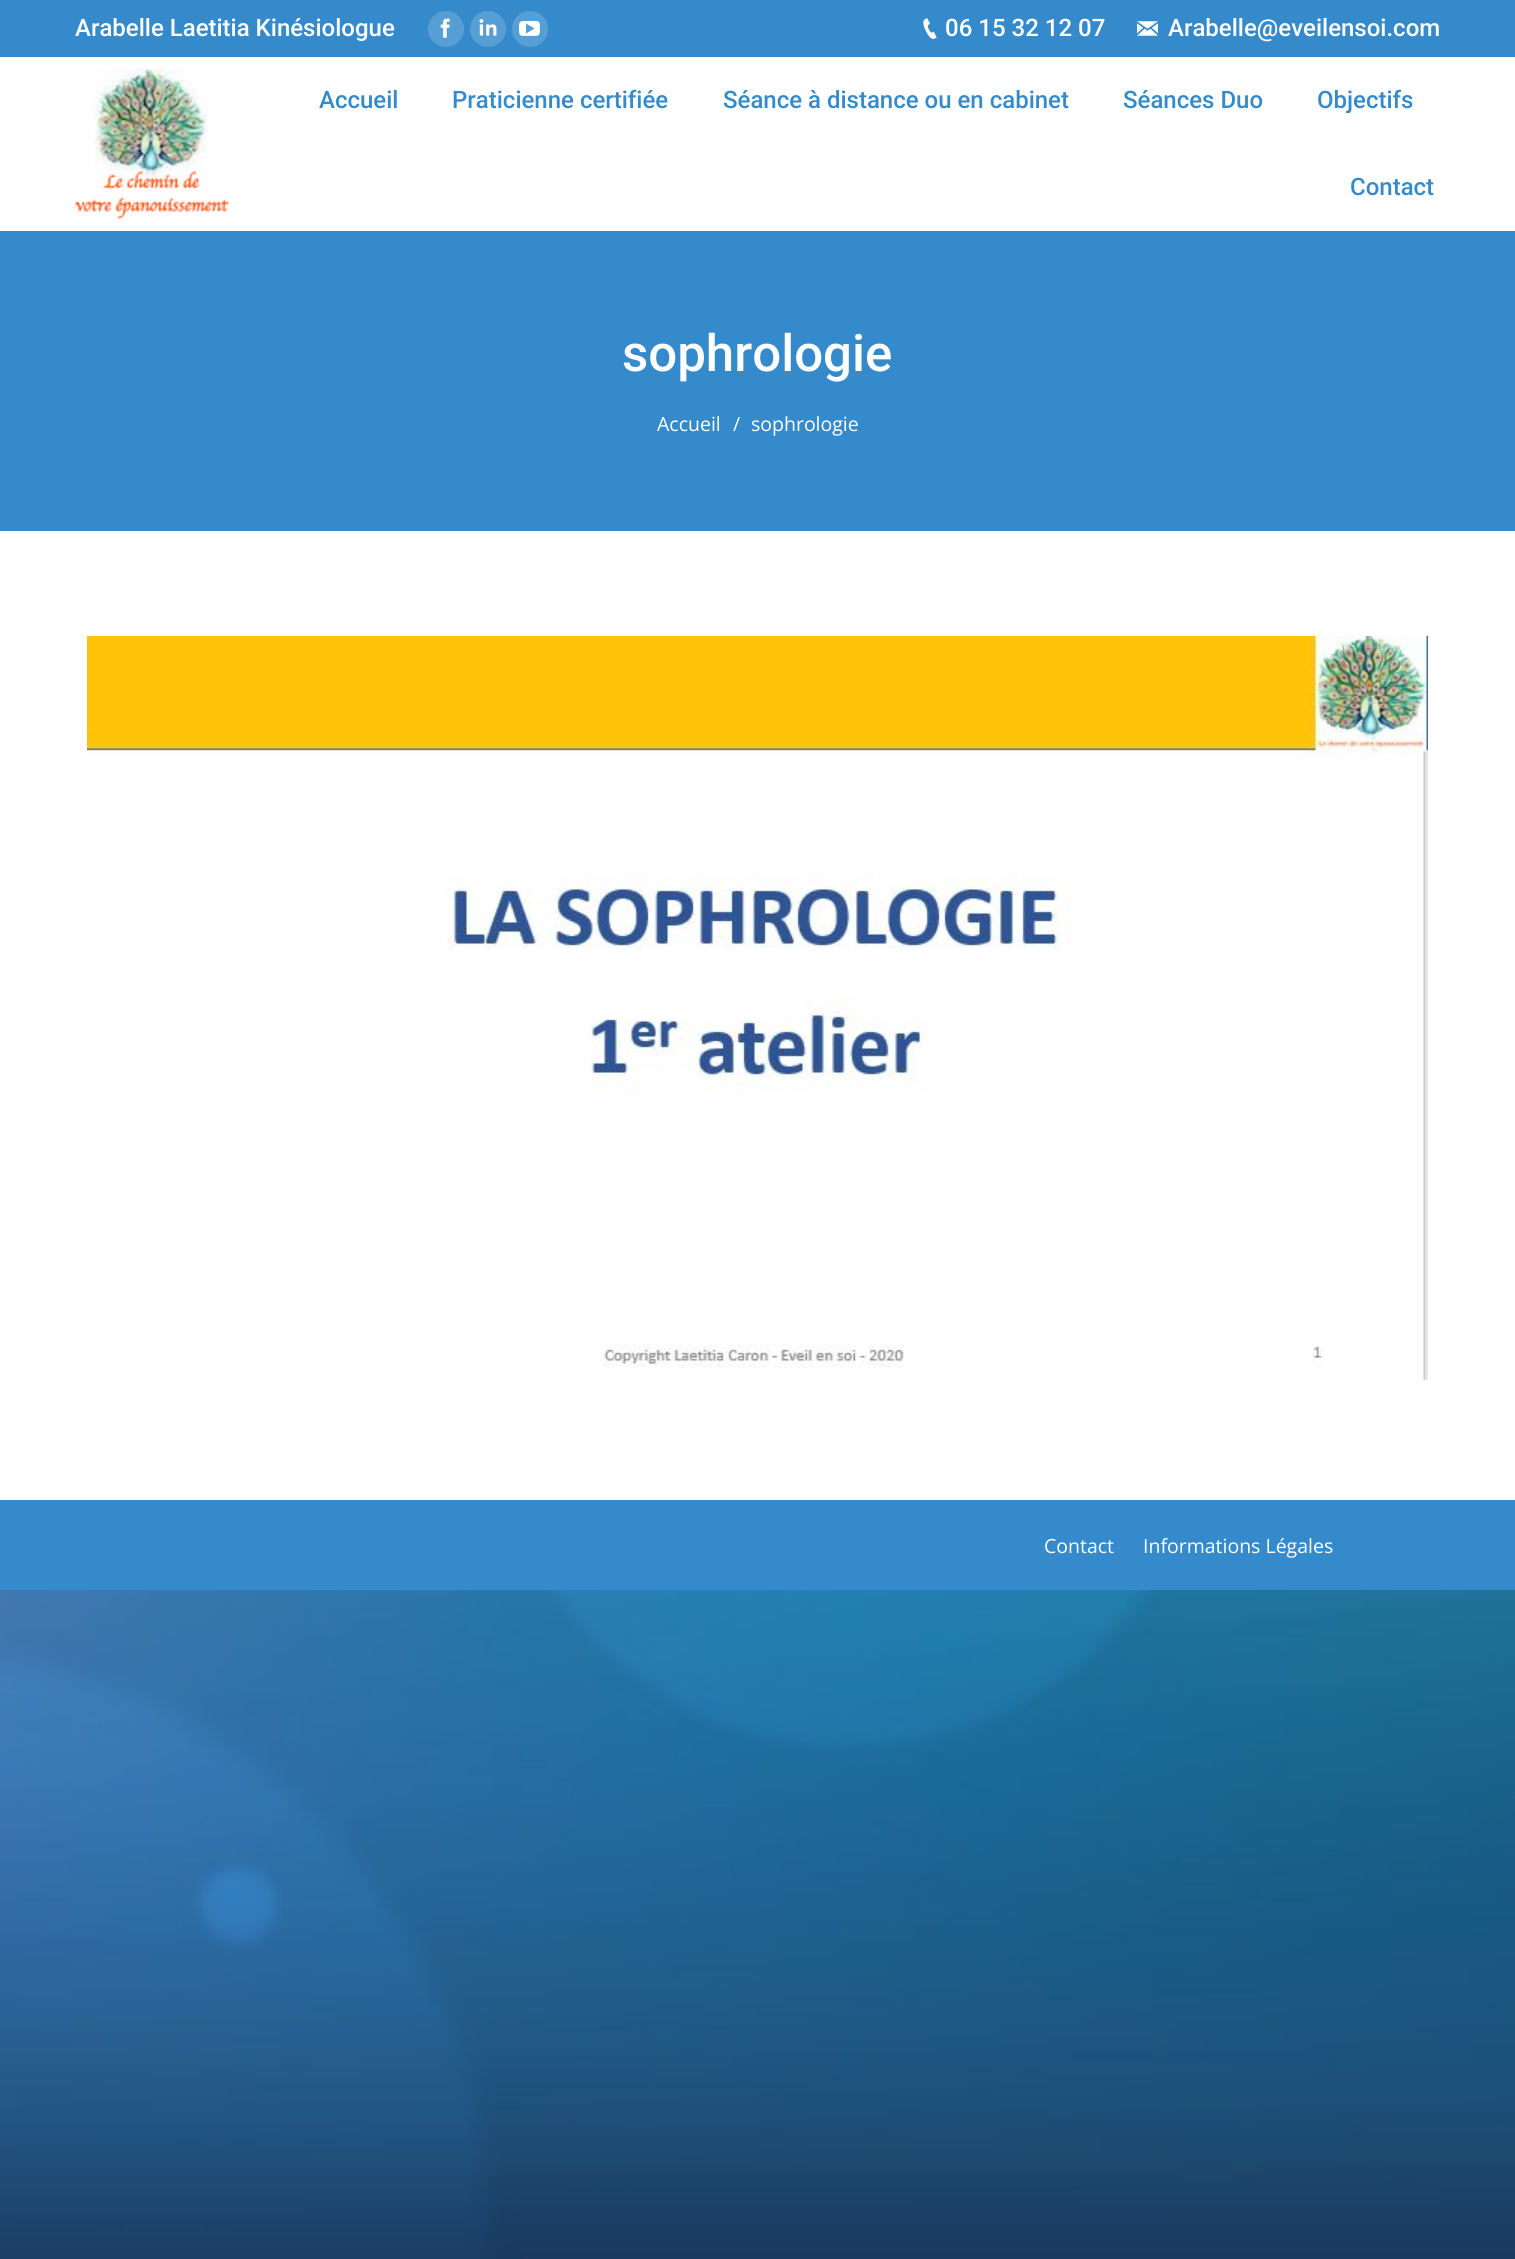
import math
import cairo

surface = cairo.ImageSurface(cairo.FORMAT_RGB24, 1515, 2259)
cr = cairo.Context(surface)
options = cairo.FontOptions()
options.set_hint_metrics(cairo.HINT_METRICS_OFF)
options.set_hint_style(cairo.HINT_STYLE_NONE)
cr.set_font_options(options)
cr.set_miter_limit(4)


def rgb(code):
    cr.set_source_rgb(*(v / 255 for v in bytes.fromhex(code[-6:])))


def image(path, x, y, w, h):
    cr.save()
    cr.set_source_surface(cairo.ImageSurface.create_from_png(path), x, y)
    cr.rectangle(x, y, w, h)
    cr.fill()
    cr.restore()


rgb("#ffffff")
cr.paint()
image("img/1.png", 0, 1590, 1515, 669)
rgb("#358acc")
cr.rectangle(0, 0, 1515, 57)
cr.fill()
rgb("#579ed5")
cr.arc(446, 29, 18, 0, 2 * math.pi)
cr.fill()
image("img/2.png", 440, 18, 10, 20)
cr.arc(488, 29, 18, 0, 2 * math.pi)
cr.fill()
image("img/3.png", 479, 19, 18, 17)
cr.arc(530, 29, 18, 0, 2 * math.pi)
cr.fill()
image("img/4.png", 518, 20, 22, 16)
image("img/5.png", 923, 18, 14, 21)
image("img/6.png", 1137, 21, 21, 15)
image("img/7.png", 75, 69, 155, 150)
rgb("#358acc")
cr.rectangle(0, 231, 1515, 300)
cr.fill()
image("img/8.png", 87, 636, 1341, 744)
cr.rectangle(0, 1500, 1515, 90)
cr.fill()
cr.select_font_face("Roboto Medium")
cr.set_font_size(24)
rgb("#ffffff")
for x, y, s in [
    (75, 36, "Arabelle Laetitia Kinésiologue"),
    (945, 36, "06 15 32 12 07"),
    (1168, 36, "Arabelle@eveilensoi.com"),
]:
    cr.move_to(x, y)
    cr.show_text(s)
rgb("#358acc")
for x, y, s in [
    (319, 108, "Accueil"),
    (452, 108, "Praticienne certifiée"),
    (723, 108, "Séance à distance ou en cabinet"),
    (1123, 108, "Séances Duo"),
    (1317, 108, "Objectifs"),
    (1350, 195, "Contact"),
]:
    cr.move_to(x, y)
    cr.show_text(s)
cr.set_font_size(51)
rgb("#ffffff")
cr.move_to(622, 371)
cr.show_text("sophrologie")
cr.select_font_face("Open Sans")
cr.set_font_size(19.5)
for x, y, s in [
    (657, 431, "Accueil"),
    (733, 431, "/"),
    (751, 431, "sophrologie"),
    (1044, 1553, "Contact"),
    (1143, 1553, "Informations Légales"),
]:
    cr.move_to(x, y)
    cr.show_text(s)
surface.write_to_png("page.png")
